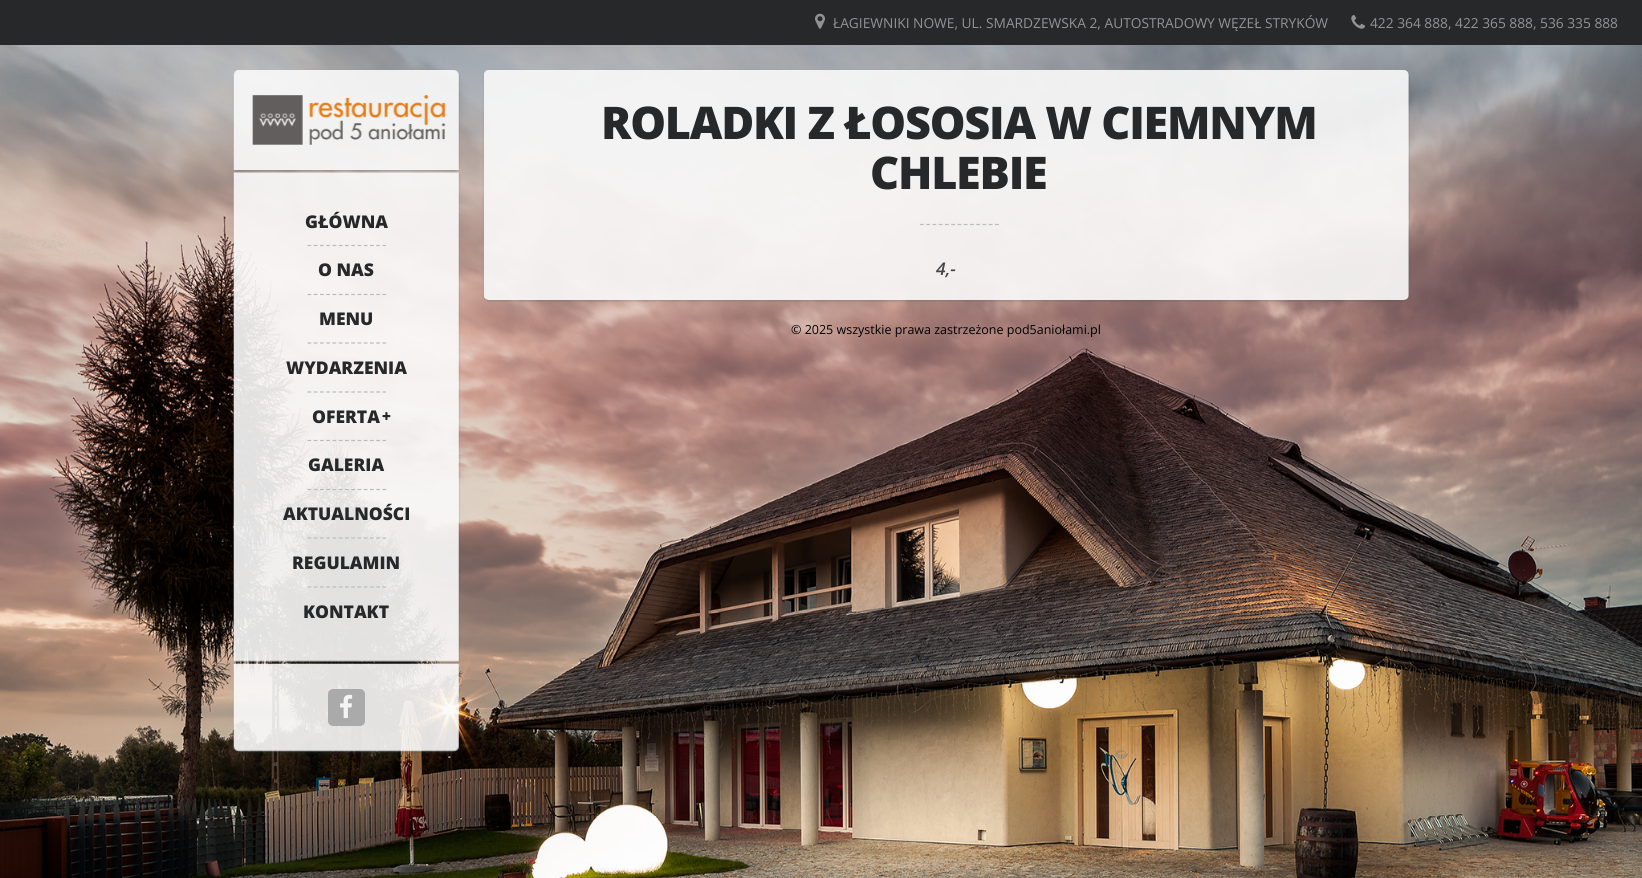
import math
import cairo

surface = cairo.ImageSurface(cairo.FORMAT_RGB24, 1642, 878)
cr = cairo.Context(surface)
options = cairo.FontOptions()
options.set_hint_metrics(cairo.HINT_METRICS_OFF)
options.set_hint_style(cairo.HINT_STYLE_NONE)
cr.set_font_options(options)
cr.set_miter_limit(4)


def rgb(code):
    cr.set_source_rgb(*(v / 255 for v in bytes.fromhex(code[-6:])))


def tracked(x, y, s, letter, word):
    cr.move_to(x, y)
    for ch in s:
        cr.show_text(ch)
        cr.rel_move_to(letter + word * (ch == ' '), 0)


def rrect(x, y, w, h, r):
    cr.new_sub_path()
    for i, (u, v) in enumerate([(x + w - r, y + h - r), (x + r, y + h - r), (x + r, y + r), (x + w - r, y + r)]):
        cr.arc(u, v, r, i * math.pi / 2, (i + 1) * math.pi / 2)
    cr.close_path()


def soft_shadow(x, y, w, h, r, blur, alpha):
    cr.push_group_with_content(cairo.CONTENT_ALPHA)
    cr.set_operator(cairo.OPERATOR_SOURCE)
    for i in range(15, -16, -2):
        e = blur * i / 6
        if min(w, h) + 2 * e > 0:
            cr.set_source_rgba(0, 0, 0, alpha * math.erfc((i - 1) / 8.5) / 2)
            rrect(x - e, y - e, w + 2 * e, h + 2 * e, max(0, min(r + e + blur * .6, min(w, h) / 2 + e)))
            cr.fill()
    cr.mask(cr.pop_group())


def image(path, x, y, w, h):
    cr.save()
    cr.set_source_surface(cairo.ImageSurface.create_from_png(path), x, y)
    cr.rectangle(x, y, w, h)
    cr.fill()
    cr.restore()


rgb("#ffffff")
cr.paint()
rgb("#26282a")
cr.rectangle(0, 0, 1642, 45)
cr.fill()
image("img/1.png", 815, 13, 10, 16)
image("img/2.png", 1351, 15, 14, 14)
image("img/3.png", 0, 45, 1642, 833)
cr.save()
cr.set_fill_rule(cairo.FILL_RULE_EVEN_ODD)
cr.new_path()
cr.move_to(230, 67)
cr.line_to(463, 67)
cr.line_to(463, 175)
cr.line_to(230, 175)
cr.close_path()
cr.move_to(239, 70)
cr.line_to(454, 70)
cr.curve_to(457, 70, 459, 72, 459, 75)
cr.line_to(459, 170)
cr.line_to(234, 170)
cr.line_to(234, 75)
cr.curve_to(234, 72, 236, 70, 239, 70)
cr.close_path()
cr.clip()
rgb("#1e4646")
soft_shadow(234, 71, 225, 100, 5, 1, 0.23)
cr.restore()
image("img/4.png", 233, 70, 226, 100)
image("img/5.png", 252, 95, 194, 50)
cr.save()
cr.set_fill_rule(cairo.FILL_RULE_EVEN_ODD)
cr.new_path()
cr.move_to(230, 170)
cr.line_to(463, 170)
cr.line_to(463, 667)
cr.line_to(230, 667)
cr.close_path()
cr.move_to(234, 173)
cr.line_to(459, 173)
cr.line_to(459, 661)
cr.line_to(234, 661)
cr.close_path()
cr.clip()
rgb("#1e4646")
soft_shadow(234, 174, 225, 489, 0, 1, 0.23)
cr.restore()
image("img/6.png", 233, 172, 226, 490)
cr.new_path()
cr.move_to(307.5, 245.5)
cr.line_to(386, 245.5)
rgb("#bbbbbb")
cr.set_line_width(1.2)
cr.set_dash([3.75, 2.5])
cr.stroke()
cr.new_path()
cr.move_to(307.5, 294.5)
cr.line_to(386, 294.5)
cr.stroke()
cr.new_path()
cr.move_to(307.5, 343)
cr.line_to(386, 343)
cr.stroke()
cr.new_path()
cr.move_to(307.5, 392)
cr.line_to(386, 392)
cr.stroke()
image("img/7.png", 382, 412, 9, 8)
cr.new_path()
cr.move_to(307.5, 440.5)
cr.line_to(386, 440.5)
cr.stroke()
cr.new_path()
cr.move_to(307.5, 489.5)
cr.line_to(386, 489.5)
cr.stroke()
cr.new_path()
cr.move_to(307.5, 538)
cr.line_to(386, 538)
cr.stroke()
cr.new_path()
cr.move_to(307.5, 587)
cr.line_to(386, 587)
cr.stroke()
cr.save()
cr.set_fill_rule(cairo.FILL_RULE_EVEN_ODD)
cr.new_path()
cr.move_to(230, 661)
cr.line_to(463, 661)
cr.line_to(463, 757)
cr.line_to(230, 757)
cr.close_path()
cr.move_to(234, 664)
cr.line_to(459, 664)
cr.line_to(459, 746)
cr.curve_to(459, 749, 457, 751, 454, 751)
cr.line_to(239, 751)
cr.curve_to(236, 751, 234, 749, 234, 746)
cr.close_path()
cr.clip()
rgb("#1e4646")
soft_shadow(234, 665, 225, 88, 5, 1, 0.23)
cr.restore()
image("img/8.png", 233, 663, 226, 89)
rgb("#aaaaaa")
rrect(328, 689, 37, 37, 5)
cr.fill()
image("img/9.png", 340, 694, 13, 25)
cr.save()
cr.set_fill_rule(cairo.FILL_RULE_EVEN_ODD)
cr.new_path()
cr.move_to(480, 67)
cr.line_to(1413, 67)
cr.line_to(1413, 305)
cr.line_to(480, 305)
cr.close_path()
cr.move_to(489, 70)
cr.line_to(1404, 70)
cr.curve_to(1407, 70, 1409, 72, 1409, 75)
cr.line_to(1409, 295)
cr.curve_to(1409, 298, 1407, 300, 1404, 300)
cr.line_to(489, 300)
cr.curve_to(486, 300, 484, 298, 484, 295)
cr.line_to(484, 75)
cr.curve_to(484, 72, 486, 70, 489, 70)
cr.close_path()
cr.clip()
rgb("#1e4646")
soft_shadow(484, 71, 925, 230, 5, 1, 0.23)
cr.restore()
image("img/10.png", 483, 70, 926, 230)
cr.new_path()
cr.move_to(920, 224.5)
cr.line_to(999, 224.5)
rgb("#bbbbbb")
cr.stroke()
cr.select_font_face("Open Sans")
cr.set_font_size(13.75)
rgb("#909294")
cr.move_to(833, 28)
cr.show_text("ŁAGIEWNIKI NOWE, UL. SMARDZEWSKA 2, AUTOSTRADOWY WĘZEŁ STRYKÓW")
cr.move_to(1370, 28)
cr.show_text("422 364 888, 422 365 888, 536 335 888")
cr.select_font_face("Open Sans ExtraBold")
cr.set_font_size(17.5)
rgb("#26282a")
for x, y, s in [
    (305, 228, "GŁÓWNA"),
    (318, 276, "O NAS"),
    (319, 325, "MENU"),
    (286, 374, "WYDARZENIA"),
    (312, 423, "OFERTA"),
    (308, 471, "GALERIA"),
    (283, 520, "AKTUALNOŚCI"),
    (292, 569, "REGULAMIN"),
    (303, 618, "KONTAKT"),
]:
    cr.move_to(x, y)
    cr.show_text(s)
cr.set_font_size(45)
tracked(601, 139, "ROLADKI Z ŁOSOSIA W CIEMNYM", -1.25, 0)
tracked(870, 189, "CHLEBIE", -1.25, 0)
cr.select_font_face("Open Sans SemiBold", cairo.FONT_SLANT_ITALIC)
cr.set_font_size(17.5)
rgb("#444648")
cr.move_to(936, 275)
cr.show_text("4,-")
cr.select_font_face("Open Sans")
cr.set_font_size(12.5)
rgb("#000000")
cr.move_to(791, 334)
cr.show_text("© 2025 wszystkie prawa zastrzeżone pod5aniołami.pl")
surface.write_to_png("page.png")
